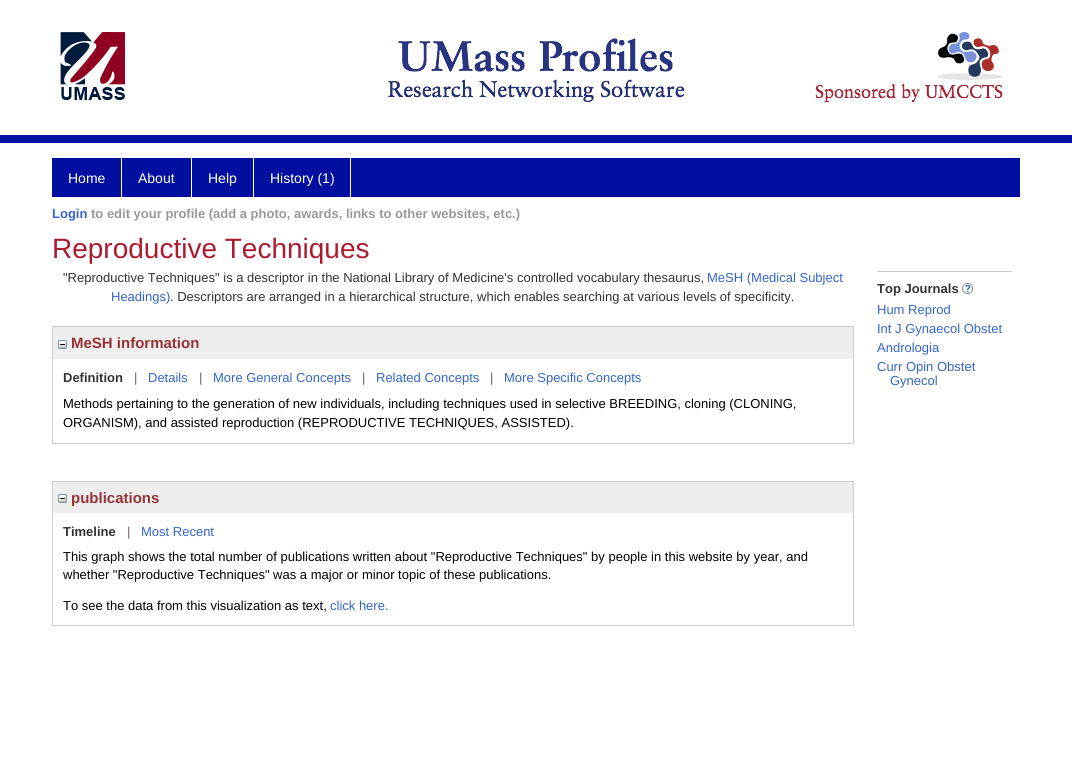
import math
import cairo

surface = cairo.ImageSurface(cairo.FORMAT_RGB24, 1072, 763)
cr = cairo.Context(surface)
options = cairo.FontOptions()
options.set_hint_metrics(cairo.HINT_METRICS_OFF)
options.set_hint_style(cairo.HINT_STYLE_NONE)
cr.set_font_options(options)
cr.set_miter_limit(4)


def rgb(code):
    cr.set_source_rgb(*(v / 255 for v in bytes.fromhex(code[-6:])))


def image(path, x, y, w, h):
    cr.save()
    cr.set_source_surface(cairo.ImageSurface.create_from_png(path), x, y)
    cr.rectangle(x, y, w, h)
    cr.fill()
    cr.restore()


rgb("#ffffff")
cr.paint()
rgb("#000f9f")
cr.rectangle(0, 135, 1072, 8)
cr.fill()
image("img/1.png", 60, 32, 943, 71)
for x, y, w, h, color in [
    (52, 158, 968, 39, "#000f9f"),
    (121, 158, 1, 39, "#ffffff"),
    (191, 158, 1, 39, "#ffffff"),
    (253, 158, 1, 39, "#ffffff"),
    (350, 158, 1, 39, "#ffffff"),
]:
    rgb(color)
    cr.rectangle(x, y, w, h)
    cr.fill()
cr.rectangle(52.5, 326.5, 801, 117)
rgb("#cccccc")
cr.set_line_width(1)
cr.stroke()
rgb("#eeeeee")
cr.rectangle(53, 327, 800, 32)
cr.fill()
image("img/2.png", 58, 340, 9, 9)
cr.rectangle(52.5, 481.5, 801, 144)
rgb("#cccccc")
cr.stroke()
rgb("#eeeeee")
cr.rectangle(53, 482, 800, 31)
cr.fill()
image("img/2.png", 58, 494, 9, 9)
rgb("#cccccc")
cr.rectangle(877, 271, 135, 1)
cr.fill()
image("img/3.png", 962, 283, 11, 11)
cr.select_font_face("Liberation Sans")
cr.set_font_size(14)
rgb("#ffffff")
for x, y, s in [
    (68, 183, "Home"),
    (138, 183, "About"),
    (208, 183, "Help"),
    (270, 183, "History (1)"),
]:
    cr.move_to(x, y)
    cr.show_text(s)
cr.select_font_face("Liberation Sans", cairo.FONT_SLANT_NORMAL, cairo.FONT_WEIGHT_BOLD)
cr.set_font_size(13)
rgb("#3366cc")
cr.move_to(52, 218)
cr.show_text("Login")
rgb("#999999")
cr.move_to(91, 218)
cr.show_text("to edit your profile (add a photo, awards, links to other websites, etc.)")
cr.select_font_face("Liberation Sans")
cr.set_font_size(28)
rgb("#ac1b30")
cr.move_to(52, 258)
cr.show_text("Reproductive Techniques")
cr.set_font_size(13)
rgb("#333333")
cr.move_to(63, 282)
cr.show_text("\"Reproductive Techniques\" is a descriptor in the National Library of Medicine's controlled vocabulary thesaurus,")
rgb("#3366cc")
cr.move_to(707, 282)
cr.show_text("MeSH (Medical Subject")
cr.move_to(111, 301)
cr.show_text("Headings)")
rgb("#333333")
cr.move_to(170, 301)
cr.show_text(". Descriptors are arranged in a hierarchical structure, which enables searching at various levels of specificity.")
cr.select_font_face("Liberation Sans", cairo.FONT_SLANT_NORMAL, cairo.FONT_WEIGHT_BOLD)
cr.set_font_size(15)
rgb("#993333")
cr.move_to(71, 348)
cr.show_text("MeSH information")
cr.set_font_size(13)
rgb("#333333")
cr.move_to(63, 382)
cr.show_text("Definition")
cr.select_font_face("Liberation Sans")
rgb("#666666")
cr.move_to(134, 382)
cr.show_text("|")
rgb("#3366cc")
cr.move_to(148, 382)
cr.show_text("Details")
rgb("#666666")
cr.move_to(199, 382)
cr.show_text("|")
rgb("#3366cc")
cr.move_to(213, 382)
cr.show_text("More General Concepts")
rgb("#666666")
cr.move_to(362, 382)
cr.show_text("|")
rgb("#3366cc")
cr.move_to(376, 382)
cr.show_text("Related Concepts")
rgb("#666666")
cr.move_to(490, 382)
cr.show_text("|")
rgb("#3366cc")
cr.move_to(504, 382)
cr.show_text("More Specific Concepts")
rgb("#000000")
cr.move_to(63, 408)
cr.show_text("Methods pertaining to the generation of new individuals, including techniques used in selective BREEDING, cloning (CLONING,")
cr.move_to(63, 427)
cr.show_text("ORGANISM), and assisted reproduction (REPRODUCTIVE TECHNIQUES, ASSISTED).")
cr.select_font_face("Liberation Sans", cairo.FONT_SLANT_NORMAL, cairo.FONT_WEIGHT_BOLD)
cr.set_font_size(15)
rgb("#993333")
cr.move_to(71, 503)
cr.show_text("publications")
cr.set_font_size(13)
rgb("#333333")
cr.move_to(63, 536)
cr.show_text("Timeline")
cr.select_font_face("Liberation Sans")
rgb("#666666")
cr.move_to(127, 536)
cr.show_text("|")
rgb("#3366cc")
cr.move_to(141, 536)
cr.show_text("Most Recent")
rgb("#000000")
for x, y, s in [
    (63, 561, "This graph shows the total number of publications written about \"Reproductive Techniques\" by people in this website by year, and"),
    (63, 579, "whether \"Reproductive Techniques\" was a major or minor topic of these publications."),
    (63, 610, "To see the data from this visualization as text,"),
]:
    cr.move_to(x, y)
    cr.show_text(s)
rgb("#3366cc")
cr.move_to(330, 610)
cr.show_text("click here.")
cr.select_font_face("Liberation Sans", cairo.FONT_SLANT_NORMAL, cairo.FONT_WEIGHT_BOLD)
rgb("#333333")
cr.move_to(877, 293)
cr.show_text("Top Journals")
cr.select_font_face("Liberation Sans")
rgb("#3366cc")
for x, y, s in [
    (877, 314, "Hum Reprod"),
    (877, 333, "Int J Gynaecol Obstet"),
    (877, 352, "Andrologia"),
    (877, 371, "Curr Opin Obstet"),
    (890, 385, "Gynecol"),
]:
    cr.move_to(x, y)
    cr.show_text(s)
surface.write_to_png("page.png")
